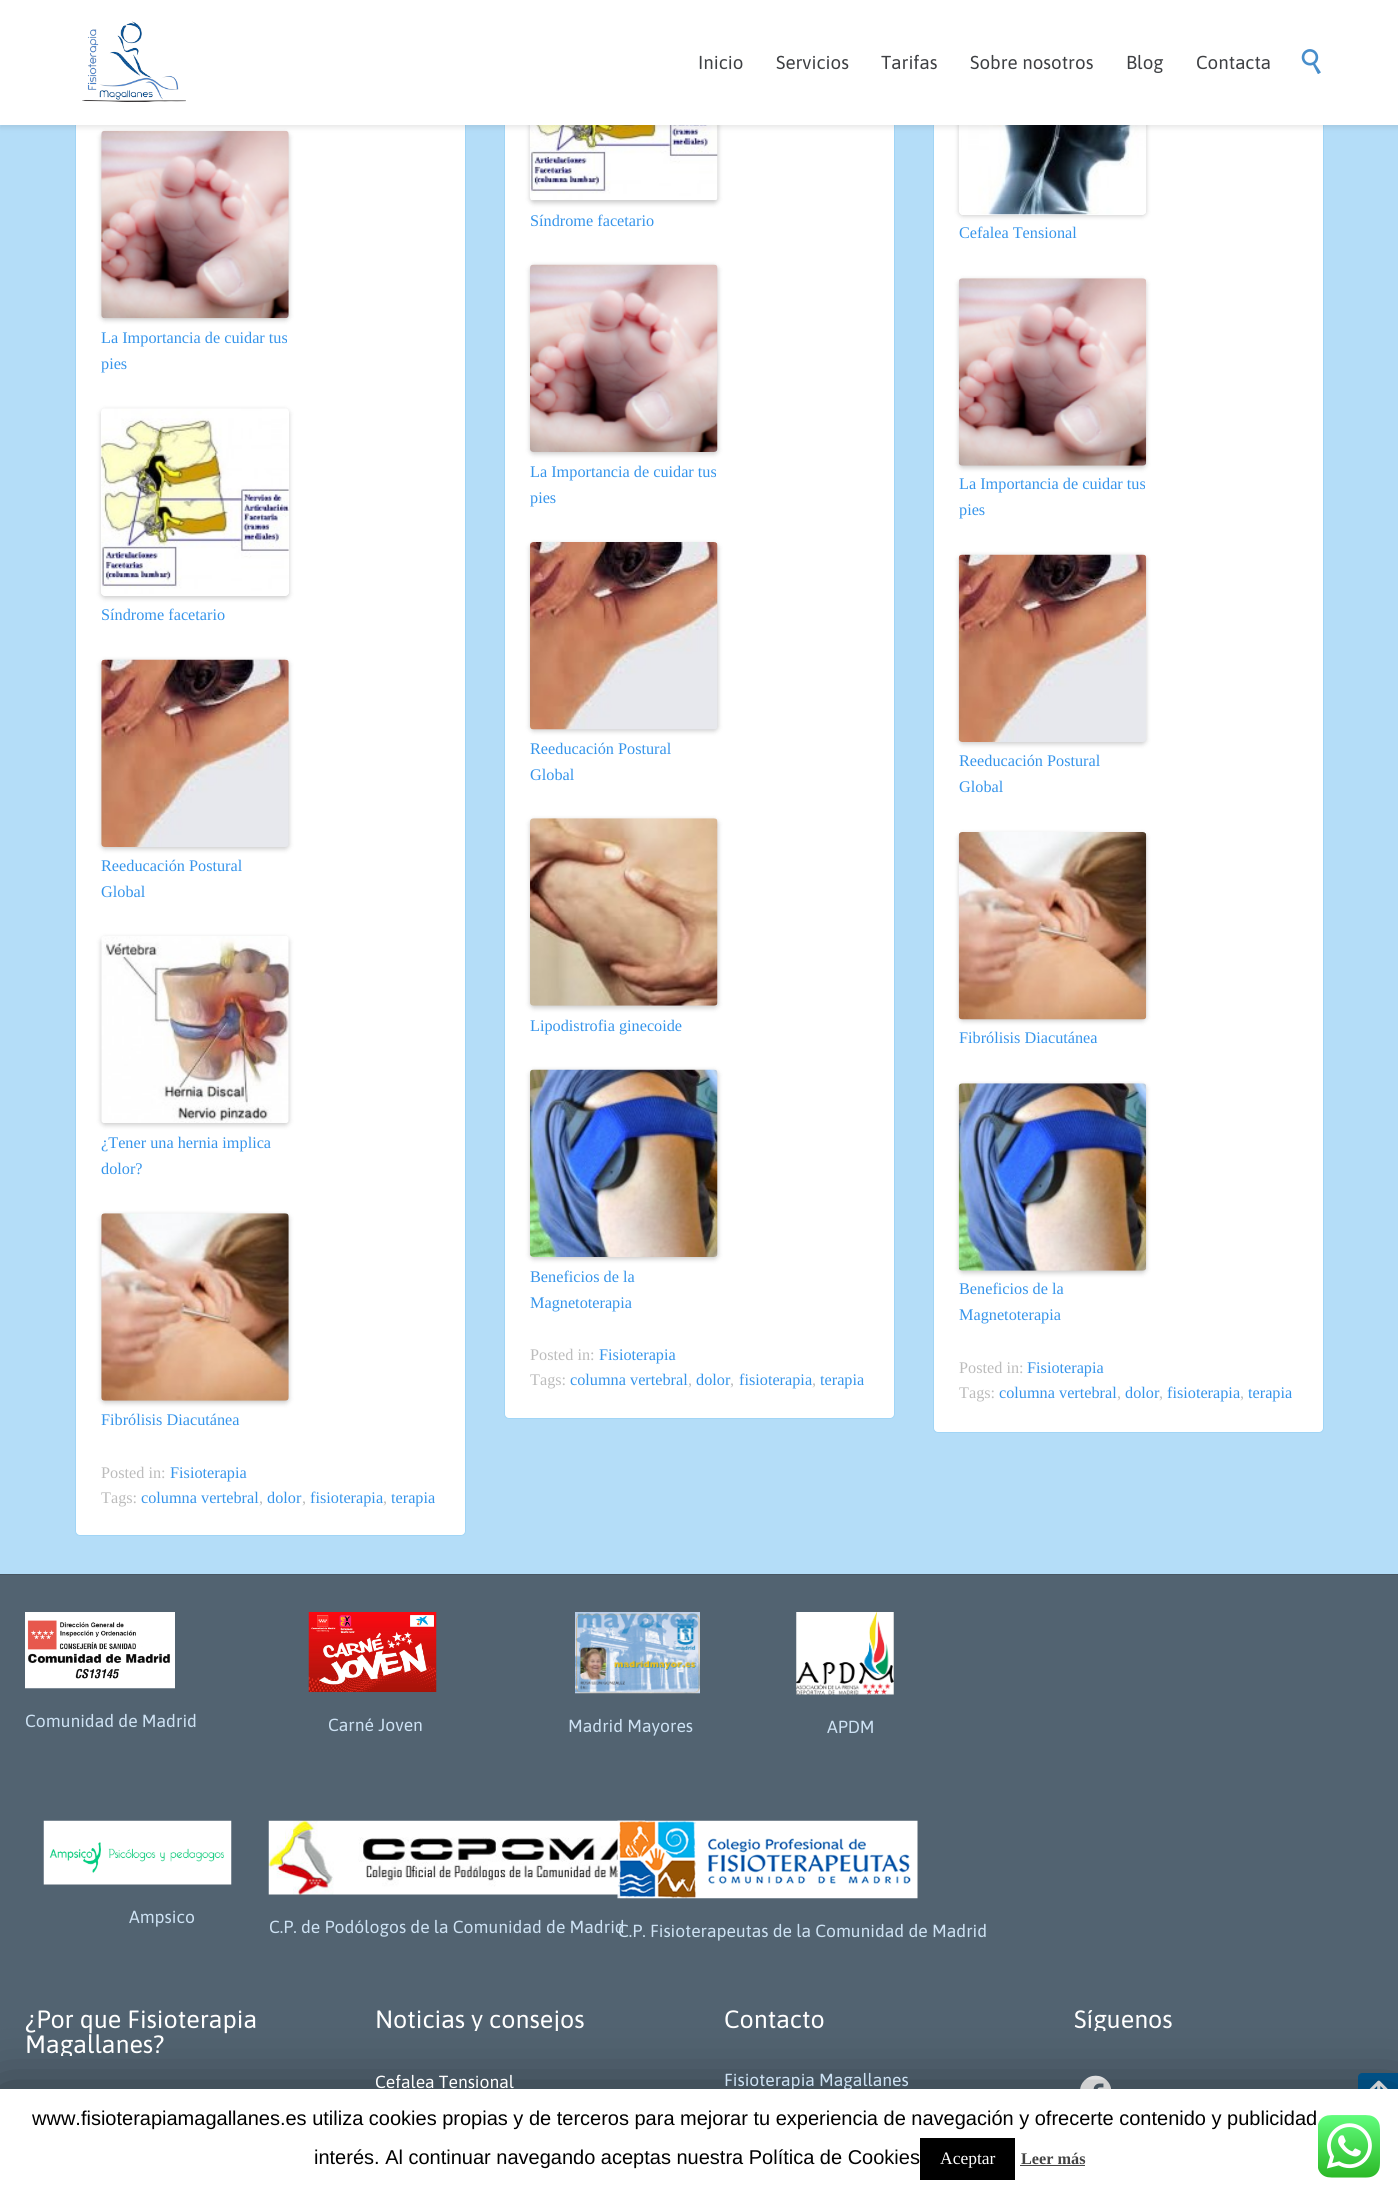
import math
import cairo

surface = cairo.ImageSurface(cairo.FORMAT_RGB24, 1398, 2196)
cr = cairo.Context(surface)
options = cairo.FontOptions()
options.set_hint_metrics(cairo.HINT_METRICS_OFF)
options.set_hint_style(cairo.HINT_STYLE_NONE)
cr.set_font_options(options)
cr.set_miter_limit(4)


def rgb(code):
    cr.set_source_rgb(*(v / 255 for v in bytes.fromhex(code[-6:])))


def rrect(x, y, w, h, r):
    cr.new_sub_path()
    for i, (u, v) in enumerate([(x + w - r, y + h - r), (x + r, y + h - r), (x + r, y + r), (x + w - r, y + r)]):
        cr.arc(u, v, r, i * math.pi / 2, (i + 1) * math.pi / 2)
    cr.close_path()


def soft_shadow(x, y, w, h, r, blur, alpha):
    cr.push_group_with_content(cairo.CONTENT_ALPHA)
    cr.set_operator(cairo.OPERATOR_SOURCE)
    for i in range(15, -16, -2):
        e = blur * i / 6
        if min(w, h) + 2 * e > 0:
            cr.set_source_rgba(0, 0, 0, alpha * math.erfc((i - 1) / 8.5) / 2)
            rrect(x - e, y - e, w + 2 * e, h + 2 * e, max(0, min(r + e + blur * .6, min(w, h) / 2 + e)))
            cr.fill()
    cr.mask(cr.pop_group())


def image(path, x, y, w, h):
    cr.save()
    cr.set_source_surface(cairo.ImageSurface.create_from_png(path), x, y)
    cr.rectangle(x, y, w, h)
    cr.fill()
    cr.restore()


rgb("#b4ddf8")
cr.paint()
rgb("#ffffff")
rrect(75.5, -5.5, 390, 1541, 4.5)
cr.fill_preserve()
rgb("#a1d5f6")
cr.set_line_width(1)
cr.stroke()
rgb("#000000")
soft_shadow(101, 133, 188, 187, 4, 2.5, 0.2)
image("img/3.png", 101, 130, 188, 189)
rgb("#ffffff")
rrect(504.5, -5.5, 390, 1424, 4.5)
cr.fill_preserve()
rgb("#a1d5f6")
cr.stroke()
rgb("#000000")
soft_shadow(530, 15, 188, 188, 4, 2.5, 0.2)
image("img/8.png", 530, 125, 188, 75)
rgb("#ffffff")
rrect(933.5, -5.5, 390, 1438, 4.5)
cr.fill_preserve()
rgb("#a1d5f6")
cr.stroke()
cr.save()
cr.set_fill_rule(cairo.FILL_RULE_EVEN_ODD)
cr.new_path()
cr.move_to(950, 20)
cr.line_to(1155, 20)
cr.line_to(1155, 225)
cr.line_to(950, 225)
cr.close_path()
cr.move_to(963, 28)
cr.line_to(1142, 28)
cr.curve_to(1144, 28, 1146, 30, 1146, 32)
cr.line_to(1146, 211)
cr.curve_to(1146, 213, 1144, 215, 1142, 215)
cr.line_to(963, 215)
cr.curve_to(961, 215, 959, 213, 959, 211)
cr.line_to(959, 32)
cr.curve_to(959, 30, 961, 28, 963, 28)
cr.close_path()
cr.clip()
rgb("#000000")
soft_shadow(959, 29, 187, 187, 4, 2.5, 0.2)
cr.restore()
image("img/13.png", 961, 125, 185, 90)
rgb("#000000")
soft_shadow(0, 3, 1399, 125, 0, 2.5, 0.09)
rgb("#ffffff")
cr.rectangle(0, 0, 1398, 125)
cr.fill()
image("img/1.png", 82, 21, 104, 81)
image("img/2.png", 1301, 49, 20, 25)
cr.save()
cr.set_fill_rule(cairo.FILL_RULE_EVEN_ODD)
cr.new_path()
cr.move_to(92, 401)
cr.line_to(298, 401)
cr.line_to(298, 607)
cr.line_to(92, 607)
cr.close_path()
cr.move_to(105, 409)
cr.line_to(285, 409)
cr.curve_to(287, 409, 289, 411, 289, 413)
cr.line_to(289, 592)
cr.curve_to(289, 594, 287, 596, 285, 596)
cr.line_to(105, 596)
cr.curve_to(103, 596, 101, 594, 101, 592)
cr.line_to(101, 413)
cr.curve_to(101, 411, 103, 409, 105, 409)
cr.close_path()
cr.clip()
rgb("#000000")
soft_shadow(101, 410, 188, 188, 4, 2.5, 0.2)
cr.restore()
image("img/4.png", 101, 408, 188, 186)
rgb("#000000")
soft_shadow(101, 661, 188, 188, 4, 2.5, 0.2)
image("img/5.png", 101, 659, 188, 188)
soft_shadow(101, 938, 188, 187, 4, 2.5, 0.2)
image("img/6.png", 101, 936, 188, 187)
soft_shadow(101, 1215, 188, 188, 4, 2.5, 0.2)
image("img/7.png", 101, 1213, 188, 188)
soft_shadow(530, 266, 188, 188, 4, 2.5, 0.2)
image("img/9.png", 530, 264, 188, 188)
soft_shadow(530, 544, 188, 187, 4, 2.5, 0.2)
image("img/10.png", 530, 542, 188, 188)
soft_shadow(530, 820, 188, 188, 4, 2.5, 0.2)
image("img/11.png", 530, 818, 188, 188)
soft_shadow(530, 1071, 188, 188, 4, 2.5, 0.2)
image("img/12.png", 530, 1069, 188, 188)
soft_shadow(959, 280, 187, 188, 4, 2.5, 0.2)
image("img/14.png", 958, 278, 189, 188)
soft_shadow(959, 556, 187, 188, 4, 2.5, 0.2)
image("img/15.png", 958, 554, 189, 188)
soft_shadow(959, 834, 187, 187, 4, 2.5, 0.2)
image("img/16.png", 958, 832, 189, 188)
soft_shadow(959, 1085, 187, 188, 4, 2.5, 0.2)
image("img/17.png", 958, 1083, 189, 188)
rgb("#526371")
cr.rectangle(0, 1575, 1398, 514)
cr.fill()
rgb("#475662")
cr.rectangle(0, 1574, 1398, 1)
cr.fill()
image("img/18.png", 25, 1612, 150, 77)
image("img/19.png", 308, 1612, 129, 80)
image("img/20.png", 575, 1612, 125, 82)
image("img/21.png", 796, 1612, 98, 83)
image("img/22.png", 43, 1820, 189, 65)
image("img/23.png", 268, 1820, 377, 75)
image("img/24.png", 617, 1820, 301, 79)
image("img/25.png", 1080, 2075, 31, 14)
rgb("#005c98")
cr.new_path()
cr.move_to(1362, 2073)
cr.line_to(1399, 2073)
cr.line_to(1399, 2110)
cr.line_to(1358, 2110)
cr.line_to(1358, 2077)
cr.curve_to(1358, 2075, 1360, 2073, 1362, 2073)
cr.close_path()
cr.fill()
image("img/26.png", 1369, 2080, 19, 9)
rgb("#000000")
soft_shadow(0, 2095, 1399, 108, 0, 31, 0.5)
cr.select_font_face("Asap")
cr.set_font_size(18.75)
rgb("#3e4043")
for x, y, s in [
    (698, 69, "Inicio"),
    (776, 69, "Servicios"),
    (881, 69, "Tarifas"),
    (970, 69, "Sobre nosotros"),
    (1126, 69, "Blog"),
    (1196, 69, "Contacta"),
]:
    cr.move_to(x, y)
    cr.show_text(s)
cr.select_font_face("Liberation Serif")
cr.set_font_size(16.25)
rgb("#3695eb")
for x, y, s in [
    (101, 343, "La Importancia de cuidar tus"),
    (101, 369, "pies"),
    (101, 620, "Síndrome facetario"),
    (101, 871, "Reeducación Postural"),
    (101, 897, "Global"),
    (101, 1148, "¿Tener una hernia implica"),
    (101, 1174, "dolor?"),
    (101, 1425, "Fibrólisis Diacutánea"),
]:
    cr.move_to(x, y)
    cr.show_text(s)
rgb("#bcbcbc")
cr.move_to(101, 1478)
cr.show_text("Posted in:")
rgb("#3695eb")
cr.move_to(170, 1478)
cr.show_text("Fisioterapia")
rgb("#bcbcbc")
cr.move_to(101, 1503)
cr.show_text("Tags:")
rgb("#3695eb")
cr.move_to(141, 1503)
cr.show_text("columna vertebral")
rgb("#bcbcbc")
cr.move_to(259, 1503)
cr.show_text(",")
rgb("#3695eb")
cr.move_to(267, 1503)
cr.show_text("dolor")
rgb("#bcbcbc")
cr.move_to(302, 1503)
cr.show_text(",")
rgb("#3695eb")
cr.move_to(310, 1503)
cr.show_text("fisioterapia")
rgb("#bcbcbc")
cr.move_to(383, 1503)
cr.show_text(",")
rgb("#3695eb")
for x, y, s in [
    (391, 1503, "terapia"),
    (530, 226, "Síndrome facetario"),
    (530, 477, "La Importancia de cuidar tus"),
    (530, 503, "pies"),
    (530, 754, "Reeducación Postural"),
    (530, 780, "Global"),
    (530, 1031, "Lipodistrofia ginecoide"),
    (530, 1282, "Beneficios de la"),
    (530, 1308, "Magnetoterapia"),
]:
    cr.move_to(x, y)
    cr.show_text(s)
rgb("#bcbcbc")
cr.move_to(530, 1360)
cr.show_text("Posted in:")
rgb("#3695eb")
cr.move_to(599, 1360)
cr.show_text("Fisioterapia")
rgb("#bcbcbc")
cr.move_to(530, 1385)
cr.show_text("Tags:")
rgb("#3695eb")
cr.move_to(570, 1385)
cr.show_text("columna vertebral")
rgb("#bcbcbc")
cr.move_to(688, 1385)
cr.show_text(",")
rgb("#3695eb")
cr.move_to(696, 1385)
cr.show_text("dolor")
rgb("#bcbcbc")
cr.move_to(730, 1385)
cr.show_text(",")
rgb("#3695eb")
cr.move_to(739, 1385)
cr.show_text("fisioterapia")
rgb("#bcbcbc")
cr.move_to(812, 1385)
cr.show_text(",")
rgb("#3695eb")
for x, y, s in [
    (820, 1385, "terapia"),
    (959, 238, "Cefalea Tensional"),
    (959, 489, "La Importancia de cuidar tus"),
    (959, 515, "pies"),
    (959, 766, "Reeducación Postural"),
    (959, 792, "Global"),
    (959, 1043, "Fibrólisis Diacutánea"),
    (959, 1294, "Beneficios de la"),
    (959, 1320, "Magnetoterapia"),
]:
    cr.move_to(x, y)
    cr.show_text(s)
rgb("#bcbcbc")
cr.move_to(959, 1373)
cr.show_text("Posted in:")
rgb("#3695eb")
cr.move_to(1027, 1373)
cr.show_text("Fisioterapia")
rgb("#bcbcbc")
cr.move_to(959, 1398)
cr.show_text("Tags:")
rgb("#3695eb")
cr.move_to(999, 1398)
cr.show_text("columna vertebral")
rgb("#bcbcbc")
cr.move_to(1117, 1398)
cr.show_text(",")
rgb("#3695eb")
cr.move_to(1125, 1398)
cr.show_text("dolor")
rgb("#bcbcbc")
cr.move_to(1159, 1398)
cr.show_text(",")
rgb("#3695eb")
cr.move_to(1167, 1398)
cr.show_text("fisioterapia")
rgb("#bcbcbc")
cr.move_to(1240, 1398)
cr.show_text(",")
rgb("#3695eb")
cr.move_to(1248, 1398)
cr.show_text("terapia")
cr.select_font_face("Asap")
cr.set_font_size(17.5)
rgb("#cde2f4")
for x, y, s in [
    (25, 1727, "Comunidad de Madrid"),
    (328, 1731, "Carné Joven"),
    (568, 1732, "Madrid Mayores"),
    (827, 1733, "APDM"),
    (129, 1923, "Ampsico"),
    (269, 1933, "C.P. de Podólogos de la Comunidad de Madrid"),
    (618, 1937, "C.P. Fisioterapeutas de la Comunidad de Madrid"),
]:
    cr.move_to(x, y)
    cr.show_text(s)
cr.set_font_size(25)
rgb("#ffffff")
cr.move_to(25, 2028)
cr.show_text("¿Por que Fisioterapia")
cr.save()
cr.rectangle(25, 1975, 300, 81)
cr.clip()
cr.move_to(25, 2053)
cr.show_text("Magallanes?")
cr.restore()
cr.save()
cr.rectangle(375, 1975, 300, 56)
cr.clip()
cr.move_to(375, 2028)
cr.show_text("Noticias y consejos")
cr.restore()
cr.set_font_size(17.5)
cr.move_to(375, 2088)
cr.show_text("Cefalea Tensional")
cr.set_font_size(25)
cr.move_to(724, 2028)
cr.show_text("Contacto")
cr.set_font_size(17.5)
rgb("#cde2f4")
cr.move_to(724, 2086)
cr.show_text("Fisioterapia Magallanes")
cr.save()
cr.rectangle(1074, 1975, 300, 56)
cr.clip()
cr.set_font_size(25)
rgb("#ffffff")
cr.move_to(1074, 2028)
cr.show_text("Síguenos")
cr.restore()
rgb("#ffffff")
cr.rectangle(0, 2089, 1398, 107)
cr.fill()
cr.select_font_face("Liberation Sans")
cr.set_font_size(20)
rgb("#000000")
cr.move_to(32, 2125)
cr.show_text("www.fisioterapiamagallanes.es utiliza cookies propias y de terceros para mejorar tu experiencia de navegación y ofrecerte contenido y publicidad")
cr.move_to(314, 2164)
cr.show_text("interés. Al continuar navegando aceptas nuestra Política de Cookies")
cr.rectangle(920, 2138, 95, 42)
cr.fill()
cr.select_font_face("Liberation Serif")
cr.set_font_size(17.5)
rgb("#ffffff")
cr.move_to(940, 2164)
cr.show_text("Aceptar")
cr.select_font_face("Liberation Serif", cairo.FONT_SLANT_NORMAL, cairo.FONT_WEIGHT_BOLD)
cr.set_font_size(16.25)
rgb("#444444")
cr.move_to(1021, 2164)
cr.show_text("Leer más")
cr.rectangle(1020, 2165, 65, 1)
cr.fill()
image("img/27.png", 1318, 2115, 62, 63)
surface.write_to_png("page.png")
